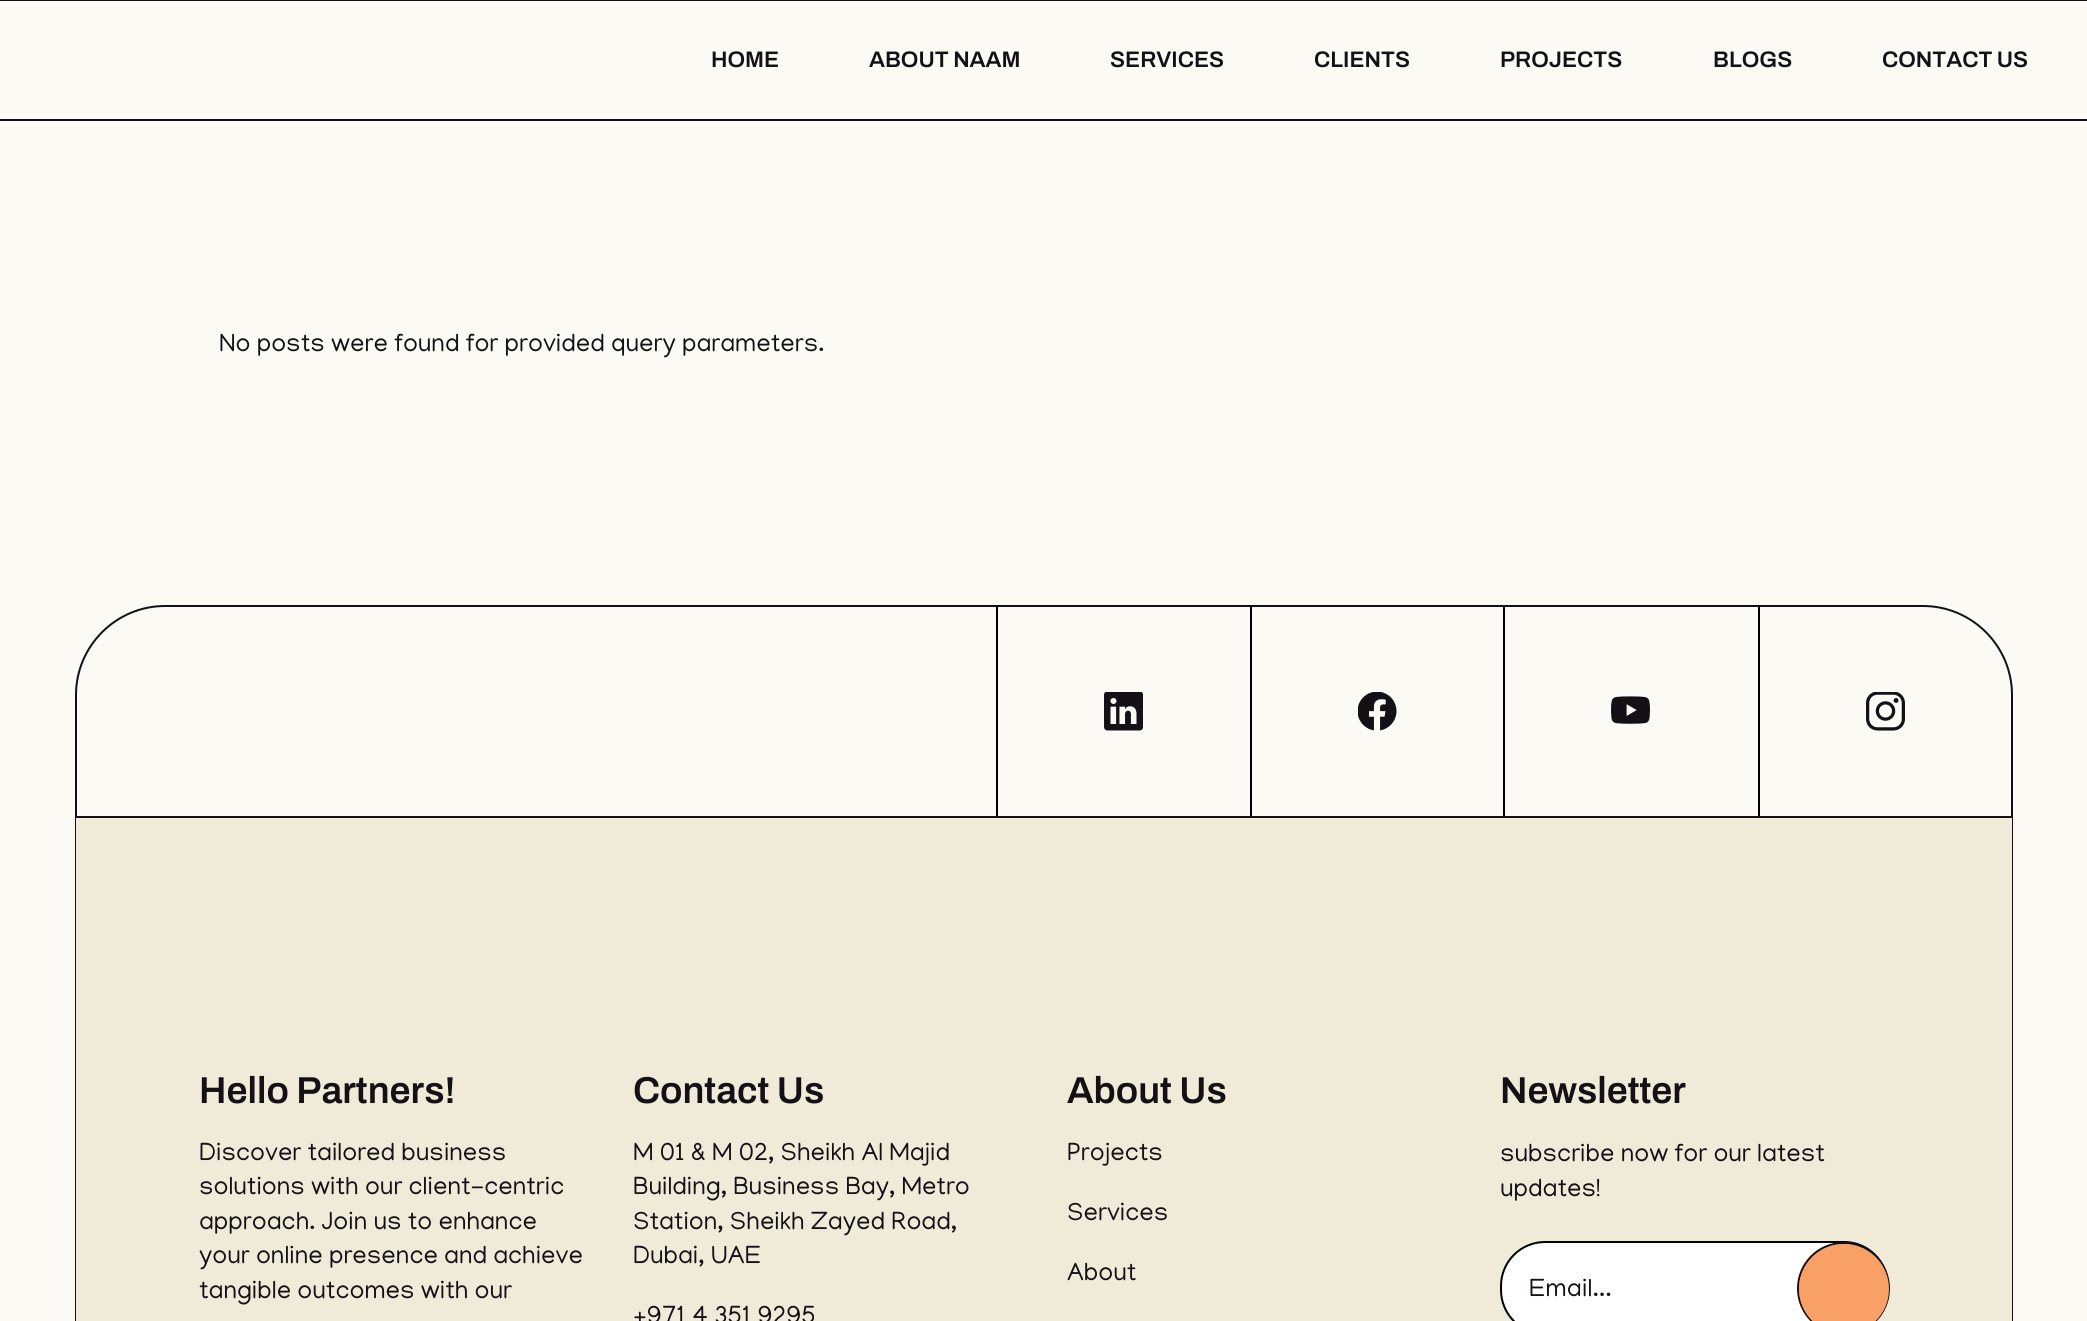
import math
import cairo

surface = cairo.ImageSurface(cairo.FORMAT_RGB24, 2087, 1321)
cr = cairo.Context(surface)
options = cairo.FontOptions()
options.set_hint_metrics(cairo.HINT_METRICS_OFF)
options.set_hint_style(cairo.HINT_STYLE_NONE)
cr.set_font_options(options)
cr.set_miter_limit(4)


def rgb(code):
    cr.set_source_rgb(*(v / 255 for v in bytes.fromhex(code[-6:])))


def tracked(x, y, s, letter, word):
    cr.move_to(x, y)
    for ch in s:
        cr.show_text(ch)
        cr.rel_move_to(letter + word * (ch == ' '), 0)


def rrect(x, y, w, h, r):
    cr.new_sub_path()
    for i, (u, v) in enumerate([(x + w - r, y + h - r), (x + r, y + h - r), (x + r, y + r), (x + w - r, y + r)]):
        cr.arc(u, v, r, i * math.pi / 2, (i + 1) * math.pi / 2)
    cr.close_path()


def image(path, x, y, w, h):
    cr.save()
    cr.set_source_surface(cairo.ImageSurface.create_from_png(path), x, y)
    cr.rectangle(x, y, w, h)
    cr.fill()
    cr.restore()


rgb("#fbfaf5")
cr.paint()
rgb("#151015")
cr.rectangle(0, 0, 2087, 1)
cr.fill()
rgb("#151016")
cr.rectangle(0, 119, 2087, 2)
cr.fill()
cr.new_path()
cr.move_to(165, 606)
cr.line_to(1923, 606)
cr.curve_to(1972, 606, 2012, 646, 2012, 695)
cr.line_to(2012, 817)
cr.line_to(76, 817)
cr.line_to(76, 695)
cr.curve_to(76, 646, 116, 606, 165, 606)
cr.close_path()
rgb("#151015")
cr.stroke()
rgb("#000000")
cr.rectangle(996, 606, 2, 210)
cr.fill()
image("img/1.png", 1104, 692, 39, 39)
cr.rectangle(1250, 606, 2, 210)
cr.fill()
image("img/2.png", 1358, 692, 39, 39)
cr.rectangle(1503, 606, 2, 210)
cr.fill()
image("img/3.png", 1611, 696, 39, 28)
cr.rectangle(1758, 606, 2, 210)
cr.fill()
image("img/4.png", 1866, 692, 39, 39)
rgb("#f0ead8")
cr.rectangle(76, 818, 1936, 503)
cr.fill()
rgb("#151015")
cr.set_fill_rule(cairo.FILL_RULE_EVEN_ODD)
cr.new_path()
cr.move_to(75, 818)
cr.line_to(2013, 818)
cr.line_to(2013, 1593)
cr.curve_to(2013, 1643, 1973, 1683, 1923, 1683)
cr.line_to(165, 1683)
cr.curve_to(115, 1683, 75, 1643, 75, 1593)
cr.close_path()
cr.move_to(76, 818)
cr.line_to(2012, 818)
cr.line_to(2012, 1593)
cr.curve_to(2012, 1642, 1972, 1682, 1923, 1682)
cr.line_to(165, 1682)
cr.curve_to(116, 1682, 76, 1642, 76, 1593)
cr.close_path()
cr.fill()
rgb("#ffffff")
rrect(1501, 1242, 387, 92, 44)
cr.fill_preserve()
rgb("#000000")
cr.stroke()
rgb("#f8a065")
cr.arc(1843.5, 1288.5, 45.5, 0, 2 * math.pi)
cr.fill_preserve()
rgb("#151015")
cr.stroke()
rgb("#f8a065")
cr.arc(1844, 1289, 45, 0, 2 * math.pi)
cr.fill()
cr.select_font_face("Archivo SemiBold")
cr.set_font_size(22.5)
rgb("#151015")
for x, y, s in [
    (711, 67, "HOME"),
    (869, 67, "ABOUT NAAM"),
    (1110, 67, "SERVICES"),
    (1314, 67, "CLIENTS"),
    (1500, 67, "PROJECTS"),
    (1713, 67, "BLOGS"),
    (1882, 67, "CONTACT US"),
]:
    cr.move_to(x, y)
    cr.show_text(s)
cr.select_font_face("Manjari")
cr.set_font_size(25.5)
cr.move_to(219, 351)
cr.show_text("No posts were found for provided query parameters.")
cr.select_font_face("Archivo SemiBold")
cr.set_font_size(37.5)
cr.move_to(199, 1103)
cr.show_text("Hello Partners!")
cr.select_font_face("Manjari")
cr.set_font_size(25.5)
for x, y, s in [
    (199, 1160, "Discover tailored business"),
    (199, 1194, "solutions with our client-centric"),
    (199, 1229, "approach. Join us to enhance"),
    (199, 1263, "your online presence and achieve"),
    (199, 1298, "tangible outcomes with our"),
]:
    cr.move_to(x, y)
    cr.show_text(s)
cr.select_font_face("Archivo SemiBold")
cr.set_font_size(37.5)
cr.move_to(633, 1103)
cr.show_text("Contact Us")
cr.select_font_face("Manjari")
cr.set_font_size(25.5)
for x, y, s in [
    (633, 1160, "M 01 & M 02, Sheikh Al Majid"),
    (633, 1194, "Building, Business Bay, Metro"),
    (633, 1229, "Station, Sheikh Zayed Road,"),
    (633, 1263, "Dubai, UAE"),
    (633, 1323, "+971 4 351 9295"),
]:
    cr.move_to(x, y)
    cr.show_text(s)
cr.select_font_face("Archivo SemiBold")
cr.set_font_size(37.5)
cr.move_to(1067, 1103)
cr.show_text("About Us")
cr.select_font_face("Manjari")
cr.set_font_size(25.5)
for x, y, s in [
    (1067, 1160, "Projects"),
    (1067, 1220, "Services"),
    (1067, 1280, "About"),
]:
    cr.move_to(x, y)
    cr.show_text(s)
cr.select_font_face("Archivo SemiBold")
cr.set_font_size(37.5)
cr.move_to(1500, 1103)
cr.show_text("Newsletter")
cr.select_font_face("Manjari")
cr.set_font_size(25.5)
cr.move_to(1500, 1161)
cr.show_text("subscribe now for our latest")
cr.move_to(1500, 1196)
cr.show_text("updates!")
tracked(1529, 1296, "Email...", 0.25, 0)
surface.write_to_png("page.png")
